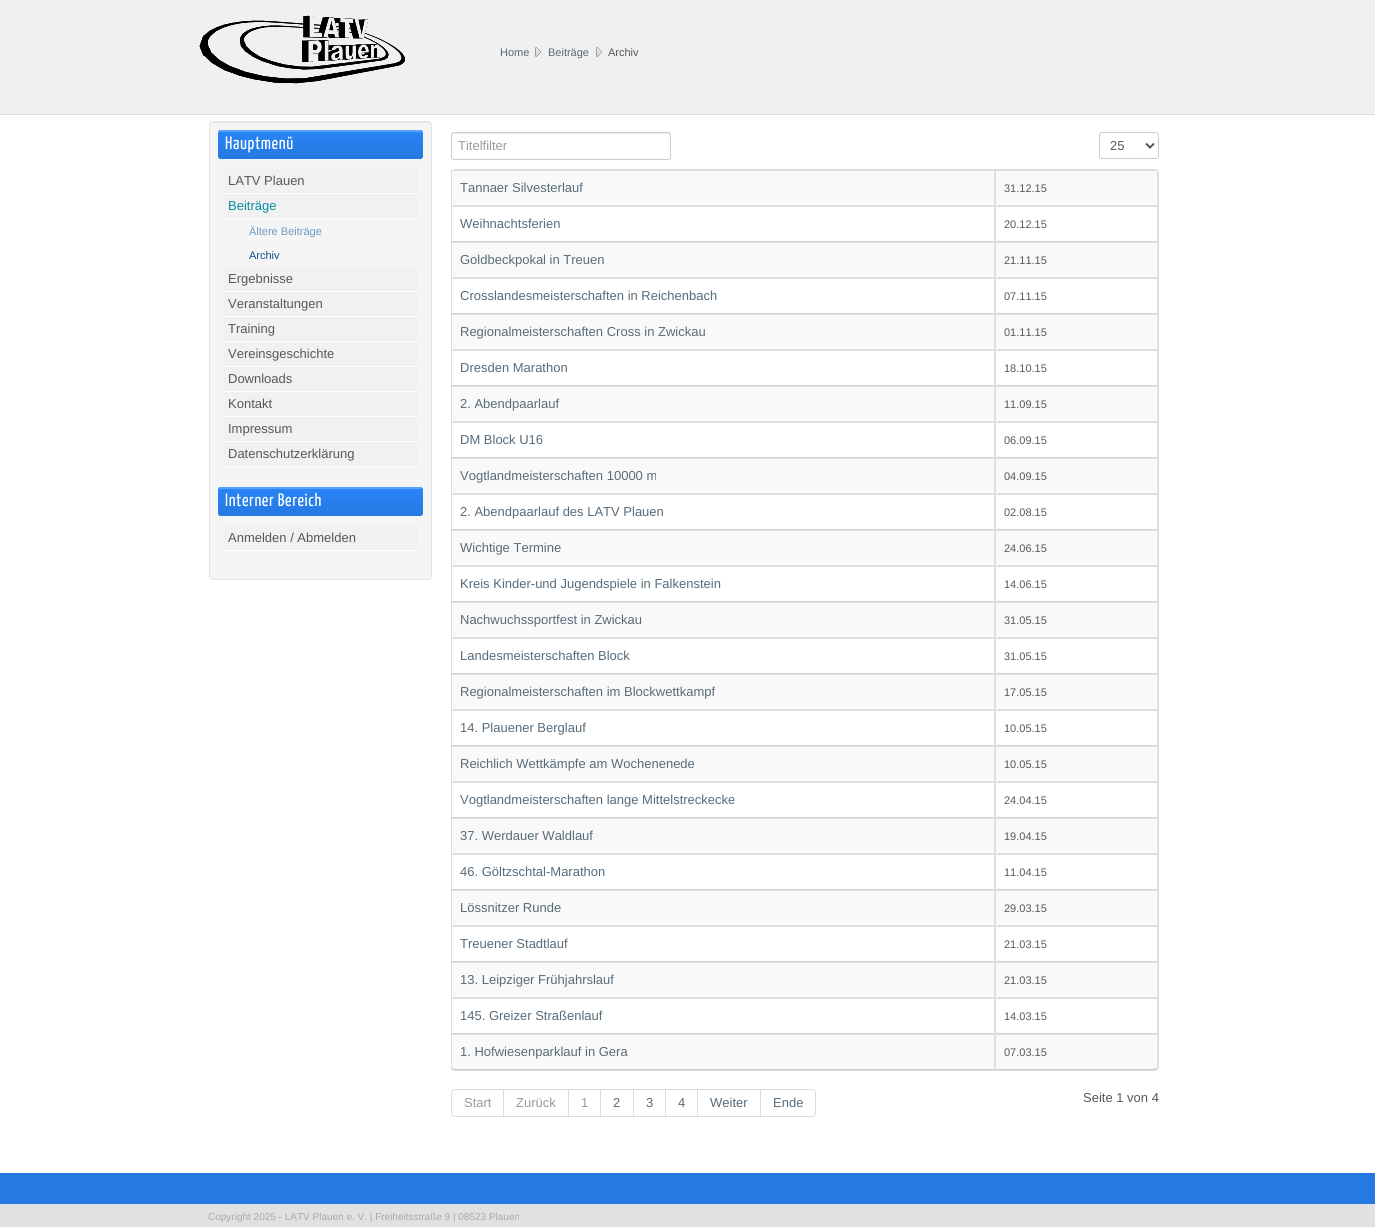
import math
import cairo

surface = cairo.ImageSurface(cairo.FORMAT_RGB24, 1375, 1227)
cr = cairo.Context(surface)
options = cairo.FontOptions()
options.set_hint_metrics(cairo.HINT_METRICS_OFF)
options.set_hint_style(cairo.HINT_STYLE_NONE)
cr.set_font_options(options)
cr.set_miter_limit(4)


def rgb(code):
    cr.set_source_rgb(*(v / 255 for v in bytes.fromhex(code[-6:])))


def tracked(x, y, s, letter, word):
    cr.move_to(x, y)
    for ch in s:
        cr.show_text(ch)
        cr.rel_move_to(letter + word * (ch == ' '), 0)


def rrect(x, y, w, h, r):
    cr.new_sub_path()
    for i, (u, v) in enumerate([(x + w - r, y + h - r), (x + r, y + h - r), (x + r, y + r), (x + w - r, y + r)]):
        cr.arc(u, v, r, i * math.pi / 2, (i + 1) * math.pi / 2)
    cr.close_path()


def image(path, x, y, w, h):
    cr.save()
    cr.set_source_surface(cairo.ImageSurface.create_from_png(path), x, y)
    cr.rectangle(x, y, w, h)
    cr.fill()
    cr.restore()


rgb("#ffffff")
cr.paint()
image("img/1.png", 0, 0, 1375, 115)
image("img/2.png", 199, 15, 206, 69)
image("img/3.png", 535, 47, 6, 10)
image("img/3.png", 596, 47, 6, 10)
rgb("#f5f5f5")
rrect(209, 121, 223, 459, 4)
cr.fill()
rgb("#e9e9e9")
cr.new_path()
cr.move_to(213, 123)
cr.line_to(428, 123)
cr.curve_to(430, 123, 431, 124, 431, 126)
cr.line_to(431, 125)
cr.curve_to(431, 123, 430, 122, 428, 122)
cr.line_to(213, 122)
cr.curve_to(211, 122, 210, 123, 210, 125)
cr.line_to(210, 126)
cr.curve_to(210, 124, 211, 123, 213, 123)
cr.close_path()
cr.fill()
rrect(209.5, 121.5, 222, 458, 3.5)
rgb("#e3e3e3")
cr.set_line_width(1)
cr.stroke()
rgb("#2984f6")
rrect(218, 130, 205, 29, 3)
cr.fill()
cr.save()
rrect(218, 130, 205, 29, 3)
cr.clip()
gradient = cairo.LinearGradient(321, 103, 321, 131)
gradient.add_color_stop_rgba(0, 0.161, 0.518, 0.965, 1)
gradient.add_color_stop_rgba(1, 0.145, 0.475, 0.882, 1)
cr.set_source(gradient)
cr.rectangle(218, 130, 205, 1)
cr.fill()
gradient = cairo.LinearGradient(321, 131, 321, 159)
gradient.add_color_stop_rgba(0, 0.161, 0.518, 0.965, 1)
gradient.add_color_stop_rgba(1, 0.145, 0.475, 0.882, 1)
cr.set_source(gradient)
cr.new_path()
cr.move_to(218, 131)
cr.line_to(423, 131)
cr.line_to(423, 156)
cr.curve_to(423, 157.5, 421.5, 159, 420, 159)
cr.line_to(221, 159)
cr.curve_to(219.5, 159, 218, 157.5, 218, 156)
cr.close_path()
cr.fill()
cr.restore()
rgb("#59a3ff")
cr.new_path()
cr.move_to(221, 132)
cr.line_to(420, 132)
cr.curve_to(422, 132, 423, 133, 423, 134)
cr.curve_to(423, 132, 422, 131, 420, 131)
cr.line_to(221, 131)
cr.curve_to(219, 131, 218, 132, 218, 134)
cr.curve_to(218, 133, 219, 132, 221, 132)
cr.close_path()
cr.fill()
for x, y, w, h, color in [
    (220, 130, 202, 1, "#59a3ff"),
    (223, 169, 195, 24, "#f1f1f1"),
    (223, 193, 195, 1, "#ffffff"),
    (223, 194, 195, 24, "#f1f1f1"),
    (223, 218, 195, 1, "#ffffff"),
    (223, 267, 195, 24, "#f1f1f1"),
    (223, 291, 195, 1, "#ffffff"),
    (223, 292, 195, 24, "#f1f1f1"),
    (223, 316, 195, 1, "#ffffff"),
    (223, 317, 195, 24, "#f1f1f1"),
    (223, 341, 195, 1, "#ffffff"),
    (223, 342, 195, 24, "#f1f1f1"),
    (223, 366, 195, 1, "#ffffff"),
    (223, 367, 195, 24, "#f1f1f1"),
    (223, 391, 195, 1, "#ffffff"),
    (223, 392, 195, 24, "#f1f1f1"),
    (223, 416, 195, 1, "#ffffff"),
    (223, 417, 195, 24, "#f1f1f1"),
    (223, 441, 195, 1, "#ffffff"),
    (223, 442, 195, 24, "#f1f1f1"),
    (223, 466, 195, 1, "#ffffff"),
]:
    rgb(color)
    cr.rectangle(x, y, w, h)
    cr.fill()
rgb("#2984f6")
rrect(218, 487, 205, 29, 3)
cr.fill()
cr.save()
rrect(218, 487, 205, 29, 3)
cr.clip()
gradient = cairo.LinearGradient(321, 460, 321, 488)
gradient.add_color_stop_rgba(0, 0.161, 0.518, 0.965, 1)
gradient.add_color_stop_rgba(1, 0.145, 0.475, 0.882, 1)
cr.set_source(gradient)
cr.rectangle(218, 487, 205, 1)
cr.fill()
gradient = cairo.LinearGradient(321, 488, 321, 516)
gradient.add_color_stop_rgba(0, 0.161, 0.518, 0.965, 1)
gradient.add_color_stop_rgba(1, 0.145, 0.475, 0.882, 1)
cr.set_source(gradient)
cr.new_path()
cr.move_to(218, 488)
cr.line_to(423, 488)
cr.line_to(423, 513)
cr.curve_to(423, 514.5, 421.5, 516, 420, 516)
cr.line_to(221, 516)
cr.curve_to(219.5, 516, 218, 514.5, 218, 513)
cr.close_path()
cr.fill()
cr.restore()
rgb("#59a3ff")
cr.new_path()
cr.move_to(221, 489)
cr.line_to(420, 489)
cr.curve_to(422, 489, 423, 490, 423, 491)
cr.curve_to(423, 489, 422, 488, 420, 488)
cr.line_to(221, 488)
cr.curve_to(219, 488, 218, 489, 218, 491)
cr.curve_to(218, 490, 219, 489, 221, 489)
cr.close_path()
cr.fill()
for x, y, w, h, color in [
    (220, 487, 202, 1, "#59a3ff"),
    (223, 526, 195, 24, "#f1f1f1"),
    (223, 550, 195, 1, "#ffffff"),
]:
    rgb(color)
    cr.rectangle(x, y, w, h)
    cr.fill()
rgb("#ececec")
cr.new_path()
cr.move_to(454, 134)
cr.line_to(668, 134)
cr.curve_to(669, 134, 670, 135, 670, 136)
cr.curve_to(670, 135, 670, 133, 668, 133)
cr.line_to(454, 133)
cr.line_to(453, 134)
cr.line_to(452, 136)
cr.curve_to(452, 135, 453, 134, 454, 134)
cr.close_path()
cr.fill()
rrect(451.5, 132.5, 219, 27, 2.5)
rgb("#cccccc")
cr.stroke()
rrect(1099.5, 132.5, 59, 26, 2.5)
cr.stroke()
cr.new_path()
cr.move_to(1146, 143.5)
cr.line_to(1150, 147.5)
cr.line_to(1154, 143.5)
rgb("#555555")
cr.set_line_width(2)
cr.stroke()
rgb("#dddddd")
cr.set_fill_rule(cairo.FILL_RULE_EVEN_ODD)
cr.new_path()
cr.move_to(455, 169)
cr.line_to(1155, 169)
cr.curve_to(1157, 169, 1159, 171, 1159, 173)
cr.line_to(1159, 1067)
cr.curve_to(1159, 1069, 1157, 1071, 1155, 1071)
cr.line_to(455, 1071)
cr.curve_to(453, 1071, 451, 1069, 451, 1067)
cr.line_to(451, 173)
cr.curve_to(451, 171, 453, 169, 455, 169)
cr.close_path()
cr.move_to(455, 170)
cr.line_to(1155, 170)
cr.curve_to(1157, 170, 1158, 171, 1158, 173)
cr.line_to(1158, 1067)
cr.curve_to(1158, 1069, 1157, 1070, 1155, 1070)
cr.line_to(455, 1070)
cr.curve_to(453, 1070, 451, 1069, 451, 1067)
cr.line_to(451, 173)
cr.curve_to(451, 171, 453, 170, 455, 170)
cr.close_path()
cr.fill()
for x, y, w, h, color in [
    (452, 171, 542, 35, "#f9f9f9"),
    (451, 170, 707, 1, "#dddddd"),
    (994, 170, 1, 36, "#e1e1e1"),
]:
    rgb(color)
    cr.rectangle(x, y, w, h)
    cr.fill()
cr.new_path()
cr.move_to(451, 205.5)
cr.line_to(995, 205.5)
rgb("#cccccc")
cr.set_line_width(1)
cr.set_dash([1, 1])
cr.stroke()
for x, y, w, h, color in [
    (451, 170, 1, 36, "#dddddd"),
    (996, 171, 161, 35, "#f9f9f9"),
    (1157, 170, 1, 36, "#e1e1e1"),
]:
    rgb(color)
    cr.rectangle(x, y, w, h)
    cr.fill()
cr.new_path()
cr.move_to(995, 205.5)
cr.line_to(1158, 205.5)
rgb("#cccccc")
cr.stroke()
rgb("#dddddd")
cr.rectangle(995, 170, 1, 36)
cr.fill()
cr.rectangle(451.5, 206.5, 706, 35)
rgb("#e1e1e1")
cr.set_dash([])
cr.stroke()
rgb("#dddddd")
cr.rectangle(451, 206, 707, 1)
cr.fill()
rgb("#e1e1e1")
cr.rectangle(994, 206, 1, 36)
cr.fill()
cr.new_path()
cr.move_to(451, 241.5)
cr.line_to(995, 241.5)
rgb("#cccccc")
cr.set_dash([1, 1])
cr.stroke()
rgb("#dddddd")
cr.rectangle(451, 206, 1, 36)
cr.fill()
rgb("#e1e1e1")
cr.rectangle(1157, 206, 1, 1)
cr.fill()
cr.new_path()
cr.move_to(995, 241.5)
cr.line_to(1158, 241.5)
rgb("#cccccc")
cr.stroke()
for x, y, w, h, color in [
    (995, 206, 1, 36, "#dddddd"),
    (452, 243, 542, 35, "#f9f9f9"),
    (451, 242, 707, 1, "#dddddd"),
    (994, 242, 1, 36, "#e1e1e1"),
]:
    rgb(color)
    cr.rectangle(x, y, w, h)
    cr.fill()
cr.new_path()
cr.move_to(451, 277.5)
cr.line_to(995, 277.5)
rgb("#cccccc")
cr.stroke()
for x, y, w, h, color in [
    (451, 242, 1, 36, "#dddddd"),
    (996, 243, 161, 35, "#f9f9f9"),
    (1157, 242, 1, 36, "#e1e1e1"),
]:
    rgb(color)
    cr.rectangle(x, y, w, h)
    cr.fill()
cr.new_path()
cr.move_to(995, 277.5)
cr.line_to(1158, 277.5)
rgb("#cccccc")
cr.stroke()
rgb("#dddddd")
cr.rectangle(995, 242, 1, 36)
cr.fill()
cr.rectangle(451.5, 278.5, 706, 35)
rgb("#e1e1e1")
cr.set_dash([])
cr.stroke()
rgb("#dddddd")
cr.rectangle(451, 278, 707, 1)
cr.fill()
rgb("#e1e1e1")
cr.rectangle(994, 278, 1, 36)
cr.fill()
cr.new_path()
cr.move_to(451, 313.5)
cr.line_to(995, 313.5)
rgb("#cccccc")
cr.set_dash([1, 1])
cr.stroke()
rgb("#dddddd")
cr.rectangle(451, 278, 1, 36)
cr.fill()
rgb("#e1e1e1")
cr.rectangle(1157, 278, 1, 1)
cr.fill()
cr.new_path()
cr.move_to(995, 313.5)
cr.line_to(1158, 313.5)
rgb("#cccccc")
cr.stroke()
for x, y, w, h, color in [
    (995, 278, 1, 36, "#dddddd"),
    (452, 315, 542, 35, "#f9f9f9"),
    (451, 314, 707, 1, "#dddddd"),
    (994, 314, 1, 36, "#e1e1e1"),
]:
    rgb(color)
    cr.rectangle(x, y, w, h)
    cr.fill()
cr.new_path()
cr.move_to(451, 349.5)
cr.line_to(995, 349.5)
rgb("#cccccc")
cr.stroke()
for x, y, w, h, color in [
    (451, 314, 1, 36, "#dddddd"),
    (996, 315, 161, 35, "#f9f9f9"),
    (1157, 314, 1, 36, "#e1e1e1"),
]:
    rgb(color)
    cr.rectangle(x, y, w, h)
    cr.fill()
cr.new_path()
cr.move_to(995, 349.5)
cr.line_to(1158, 349.5)
rgb("#cccccc")
cr.stroke()
rgb("#dddddd")
cr.rectangle(995, 314, 1, 36)
cr.fill()
cr.rectangle(451.5, 350.5, 706, 35)
rgb("#e1e1e1")
cr.set_dash([])
cr.stroke()
rgb("#dddddd")
cr.rectangle(451, 350, 707, 1)
cr.fill()
rgb("#e1e1e1")
cr.rectangle(994, 350, 1, 36)
cr.fill()
cr.new_path()
cr.move_to(451, 385.5)
cr.line_to(995, 385.5)
rgb("#cccccc")
cr.set_dash([1, 1])
cr.stroke()
rgb("#dddddd")
cr.rectangle(451, 350, 1, 36)
cr.fill()
rgb("#e1e1e1")
cr.rectangle(1157, 350, 1, 1)
cr.fill()
cr.new_path()
cr.move_to(995, 385.5)
cr.line_to(1158, 385.5)
rgb("#cccccc")
cr.stroke()
for x, y, w, h, color in [
    (995, 350, 1, 36, "#dddddd"),
    (452, 387, 542, 35, "#f9f9f9"),
    (451, 386, 707, 1, "#dddddd"),
    (994, 386, 1, 36, "#e1e1e1"),
]:
    rgb(color)
    cr.rectangle(x, y, w, h)
    cr.fill()
cr.new_path()
cr.move_to(451, 421.5)
cr.line_to(995, 421.5)
rgb("#cccccc")
cr.stroke()
for x, y, w, h, color in [
    (451, 386, 1, 36, "#dddddd"),
    (996, 387, 161, 35, "#f9f9f9"),
    (1157, 386, 1, 36, "#e1e1e1"),
]:
    rgb(color)
    cr.rectangle(x, y, w, h)
    cr.fill()
cr.new_path()
cr.move_to(995, 421.5)
cr.line_to(1158, 421.5)
rgb("#cccccc")
cr.stroke()
rgb("#dddddd")
cr.rectangle(995, 386, 1, 36)
cr.fill()
cr.rectangle(451.5, 422.5, 706, 35)
rgb("#e1e1e1")
cr.set_dash([])
cr.stroke()
rgb("#dddddd")
cr.rectangle(451, 422, 707, 1)
cr.fill()
rgb("#e1e1e1")
cr.rectangle(994, 422, 1, 36)
cr.fill()
cr.new_path()
cr.move_to(451, 457.5)
cr.line_to(995, 457.5)
rgb("#cccccc")
cr.set_dash([1, 1])
cr.stroke()
rgb("#dddddd")
cr.rectangle(451, 422, 1, 36)
cr.fill()
rgb("#e1e1e1")
cr.rectangle(1157, 422, 1, 1)
cr.fill()
cr.new_path()
cr.move_to(995, 457.5)
cr.line_to(1158, 457.5)
rgb("#cccccc")
cr.stroke()
for x, y, w, h, color in [
    (995, 422, 1, 36, "#dddddd"),
    (452, 459, 542, 35, "#f9f9f9"),
    (451, 458, 707, 1, "#dddddd"),
    (994, 458, 1, 36, "#e1e1e1"),
]:
    rgb(color)
    cr.rectangle(x, y, w, h)
    cr.fill()
cr.new_path()
cr.move_to(451, 493.5)
cr.line_to(995, 493.5)
rgb("#cccccc")
cr.stroke()
for x, y, w, h, color in [
    (451, 458, 1, 36, "#dddddd"),
    (996, 459, 161, 35, "#f9f9f9"),
    (1157, 458, 1, 36, "#e1e1e1"),
]:
    rgb(color)
    cr.rectangle(x, y, w, h)
    cr.fill()
cr.new_path()
cr.move_to(995, 493.5)
cr.line_to(1158, 493.5)
rgb("#cccccc")
cr.stroke()
rgb("#dddddd")
cr.rectangle(995, 458, 1, 36)
cr.fill()
cr.rectangle(451.5, 494.5, 706, 35)
rgb("#e1e1e1")
cr.set_dash([])
cr.stroke()
rgb("#dddddd")
cr.rectangle(451, 494, 707, 1)
cr.fill()
rgb("#e1e1e1")
cr.rectangle(994, 494, 1, 36)
cr.fill()
cr.new_path()
cr.move_to(451, 529.5)
cr.line_to(995, 529.5)
rgb("#cccccc")
cr.set_dash([1, 1])
cr.stroke()
rgb("#dddddd")
cr.rectangle(451, 494, 1, 36)
cr.fill()
rgb("#e1e1e1")
cr.rectangle(1157, 494, 1, 1)
cr.fill()
cr.new_path()
cr.move_to(995, 529.5)
cr.line_to(1158, 529.5)
rgb("#cccccc")
cr.stroke()
for x, y, w, h, color in [
    (995, 494, 1, 36, "#dddddd"),
    (452, 531, 542, 35, "#f9f9f9"),
    (451, 530, 707, 1, "#dddddd"),
    (994, 530, 1, 36, "#e1e1e1"),
]:
    rgb(color)
    cr.rectangle(x, y, w, h)
    cr.fill()
cr.new_path()
cr.move_to(451, 565.5)
cr.line_to(995, 565.5)
rgb("#cccccc")
cr.stroke()
for x, y, w, h, color in [
    (451, 530, 1, 36, "#dddddd"),
    (996, 531, 161, 35, "#f9f9f9"),
    (1157, 530, 1, 36, "#e1e1e1"),
]:
    rgb(color)
    cr.rectangle(x, y, w, h)
    cr.fill()
cr.new_path()
cr.move_to(995, 565.5)
cr.line_to(1158, 565.5)
rgb("#cccccc")
cr.stroke()
rgb("#dddddd")
cr.rectangle(995, 530, 1, 36)
cr.fill()
cr.rectangle(451.5, 566.5, 706, 35)
rgb("#e1e1e1")
cr.set_dash([])
cr.stroke()
rgb("#dddddd")
cr.rectangle(451, 566, 707, 1)
cr.fill()
rgb("#e1e1e1")
cr.rectangle(994, 566, 1, 36)
cr.fill()
cr.new_path()
cr.move_to(451, 601.5)
cr.line_to(995, 601.5)
rgb("#cccccc")
cr.set_dash([1, 1])
cr.stroke()
rgb("#dddddd")
cr.rectangle(451, 566, 1, 36)
cr.fill()
rgb("#e1e1e1")
cr.rectangle(1157, 566, 1, 1)
cr.fill()
cr.new_path()
cr.move_to(995, 601.5)
cr.line_to(1158, 601.5)
rgb("#cccccc")
cr.stroke()
for x, y, w, h, color in [
    (995, 566, 1, 36, "#dddddd"),
    (452, 603, 542, 35, "#f9f9f9"),
    (451, 602, 707, 1, "#dddddd"),
    (994, 602, 1, 36, "#e1e1e1"),
]:
    rgb(color)
    cr.rectangle(x, y, w, h)
    cr.fill()
cr.new_path()
cr.move_to(451, 637.5)
cr.line_to(995, 637.5)
rgb("#cccccc")
cr.stroke()
for x, y, w, h, color in [
    (451, 602, 1, 36, "#dddddd"),
    (996, 603, 161, 35, "#f9f9f9"),
    (1157, 602, 1, 36, "#e1e1e1"),
]:
    rgb(color)
    cr.rectangle(x, y, w, h)
    cr.fill()
cr.new_path()
cr.move_to(995, 637.5)
cr.line_to(1158, 637.5)
rgb("#cccccc")
cr.stroke()
rgb("#dddddd")
cr.rectangle(995, 602, 1, 36)
cr.fill()
cr.rectangle(451.5, 638.5, 706, 35)
rgb("#e1e1e1")
cr.set_dash([])
cr.stroke()
rgb("#dddddd")
cr.rectangle(451, 638, 707, 1)
cr.fill()
rgb("#e1e1e1")
cr.rectangle(994, 638, 1, 36)
cr.fill()
cr.new_path()
cr.move_to(451, 673.5)
cr.line_to(995, 673.5)
rgb("#cccccc")
cr.set_dash([1, 1])
cr.stroke()
rgb("#dddddd")
cr.rectangle(451, 638, 1, 36)
cr.fill()
rgb("#e1e1e1")
cr.rectangle(1157, 638, 1, 1)
cr.fill()
cr.new_path()
cr.move_to(995, 673.5)
cr.line_to(1158, 673.5)
rgb("#cccccc")
cr.stroke()
for x, y, w, h, color in [
    (995, 638, 1, 36, "#dddddd"),
    (452, 675, 542, 35, "#f9f9f9"),
    (451, 674, 707, 1, "#dddddd"),
    (994, 674, 1, 36, "#e1e1e1"),
]:
    rgb(color)
    cr.rectangle(x, y, w, h)
    cr.fill()
cr.new_path()
cr.move_to(451, 709.5)
cr.line_to(995, 709.5)
rgb("#cccccc")
cr.stroke()
for x, y, w, h, color in [
    (451, 674, 1, 36, "#dddddd"),
    (996, 675, 161, 35, "#f9f9f9"),
    (1157, 674, 1, 36, "#e1e1e1"),
]:
    rgb(color)
    cr.rectangle(x, y, w, h)
    cr.fill()
cr.new_path()
cr.move_to(995, 709.5)
cr.line_to(1158, 709.5)
rgb("#cccccc")
cr.stroke()
rgb("#dddddd")
cr.rectangle(995, 674, 1, 36)
cr.fill()
cr.rectangle(451.5, 710.5, 706, 35)
rgb("#e1e1e1")
cr.set_dash([])
cr.stroke()
rgb("#dddddd")
cr.rectangle(451, 710, 707, 1)
cr.fill()
rgb("#e1e1e1")
cr.rectangle(994, 710, 1, 36)
cr.fill()
cr.new_path()
cr.move_to(451, 745.5)
cr.line_to(995, 745.5)
rgb("#cccccc")
cr.set_dash([1, 1])
cr.stroke()
rgb("#dddddd")
cr.rectangle(451, 710, 1, 36)
cr.fill()
rgb("#e1e1e1")
cr.rectangle(1157, 710, 1, 1)
cr.fill()
cr.new_path()
cr.move_to(995, 745.5)
cr.line_to(1158, 745.5)
rgb("#cccccc")
cr.stroke()
for x, y, w, h, color in [
    (995, 710, 1, 36, "#dddddd"),
    (452, 747, 542, 35, "#f9f9f9"),
    (451, 746, 707, 1, "#dddddd"),
    (994, 746, 1, 36, "#e1e1e1"),
]:
    rgb(color)
    cr.rectangle(x, y, w, h)
    cr.fill()
cr.new_path()
cr.move_to(451, 781.5)
cr.line_to(995, 781.5)
rgb("#cccccc")
cr.stroke()
for x, y, w, h, color in [
    (451, 746, 1, 36, "#dddddd"),
    (996, 747, 161, 35, "#f9f9f9"),
    (1157, 746, 1, 36, "#e1e1e1"),
]:
    rgb(color)
    cr.rectangle(x, y, w, h)
    cr.fill()
cr.new_path()
cr.move_to(995, 781.5)
cr.line_to(1158, 781.5)
rgb("#cccccc")
cr.stroke()
rgb("#dddddd")
cr.rectangle(995, 746, 1, 36)
cr.fill()
cr.rectangle(451.5, 782.5, 706, 35)
rgb("#e1e1e1")
cr.set_dash([])
cr.stroke()
rgb("#dddddd")
cr.rectangle(451, 782, 707, 1)
cr.fill()
rgb("#e1e1e1")
cr.rectangle(994, 782, 1, 36)
cr.fill()
cr.new_path()
cr.move_to(451, 817.5)
cr.line_to(995, 817.5)
rgb("#cccccc")
cr.set_dash([1, 1])
cr.stroke()
rgb("#dddddd")
cr.rectangle(451, 782, 1, 36)
cr.fill()
rgb("#e1e1e1")
cr.rectangle(1157, 782, 1, 1)
cr.fill()
cr.new_path()
cr.move_to(995, 817.5)
cr.line_to(1158, 817.5)
rgb("#cccccc")
cr.stroke()
for x, y, w, h, color in [
    (995, 782, 1, 36, "#dddddd"),
    (452, 819, 542, 35, "#f9f9f9"),
    (451, 818, 707, 1, "#dddddd"),
    (994, 818, 1, 36, "#e1e1e1"),
]:
    rgb(color)
    cr.rectangle(x, y, w, h)
    cr.fill()
cr.new_path()
cr.move_to(451, 853.5)
cr.line_to(995, 853.5)
rgb("#cccccc")
cr.stroke()
for x, y, w, h, color in [
    (451, 818, 1, 36, "#dddddd"),
    (996, 819, 161, 35, "#f9f9f9"),
    (1157, 818, 1, 36, "#e1e1e1"),
]:
    rgb(color)
    cr.rectangle(x, y, w, h)
    cr.fill()
cr.new_path()
cr.move_to(995, 853.5)
cr.line_to(1158, 853.5)
rgb("#cccccc")
cr.stroke()
rgb("#dddddd")
cr.rectangle(995, 818, 1, 36)
cr.fill()
cr.rectangle(451.5, 854.5, 706, 35)
rgb("#e1e1e1")
cr.set_dash([])
cr.stroke()
rgb("#dddddd")
cr.rectangle(451, 854, 707, 1)
cr.fill()
rgb("#e1e1e1")
cr.rectangle(994, 854, 1, 36)
cr.fill()
cr.new_path()
cr.move_to(451, 889.5)
cr.line_to(995, 889.5)
rgb("#cccccc")
cr.set_dash([1, 1])
cr.stroke()
rgb("#dddddd")
cr.rectangle(451, 854, 1, 36)
cr.fill()
rgb("#e1e1e1")
cr.rectangle(1157, 854, 1, 1)
cr.fill()
cr.new_path()
cr.move_to(995, 889.5)
cr.line_to(1158, 889.5)
rgb("#cccccc")
cr.stroke()
for x, y, w, h, color in [
    (995, 854, 1, 36, "#dddddd"),
    (452, 891, 542, 35, "#f9f9f9"),
    (451, 890, 707, 1, "#dddddd"),
    (994, 890, 1, 36, "#e1e1e1"),
]:
    rgb(color)
    cr.rectangle(x, y, w, h)
    cr.fill()
cr.new_path()
cr.move_to(451, 925.5)
cr.line_to(995, 925.5)
rgb("#cccccc")
cr.stroke()
for x, y, w, h, color in [
    (451, 890, 1, 36, "#dddddd"),
    (996, 891, 161, 35, "#f9f9f9"),
    (1157, 890, 1, 36, "#e1e1e1"),
]:
    rgb(color)
    cr.rectangle(x, y, w, h)
    cr.fill()
cr.new_path()
cr.move_to(995, 925.5)
cr.line_to(1158, 925.5)
rgb("#cccccc")
cr.stroke()
rgb("#dddddd")
cr.rectangle(995, 890, 1, 36)
cr.fill()
cr.rectangle(451.5, 926.5, 706, 35)
rgb("#e1e1e1")
cr.set_dash([])
cr.stroke()
rgb("#dddddd")
cr.rectangle(451, 926, 707, 1)
cr.fill()
rgb("#e1e1e1")
cr.rectangle(994, 926, 1, 36)
cr.fill()
cr.new_path()
cr.move_to(451, 961.5)
cr.line_to(995, 961.5)
rgb("#cccccc")
cr.set_dash([1, 1])
cr.stroke()
rgb("#dddddd")
cr.rectangle(451, 926, 1, 36)
cr.fill()
rgb("#e1e1e1")
cr.rectangle(1157, 926, 1, 1)
cr.fill()
cr.new_path()
cr.move_to(995, 961.5)
cr.line_to(1158, 961.5)
rgb("#cccccc")
cr.stroke()
for x, y, w, h, color in [
    (995, 926, 1, 36, "#dddddd"),
    (452, 963, 542, 35, "#f9f9f9"),
    (451, 962, 707, 1, "#dddddd"),
    (994, 962, 1, 36, "#e1e1e1"),
]:
    rgb(color)
    cr.rectangle(x, y, w, h)
    cr.fill()
cr.new_path()
cr.move_to(451, 997.5)
cr.line_to(995, 997.5)
rgb("#cccccc")
cr.stroke()
for x, y, w, h, color in [
    (451, 962, 1, 36, "#dddddd"),
    (996, 963, 161, 35, "#f9f9f9"),
    (1157, 962, 1, 36, "#e1e1e1"),
]:
    rgb(color)
    cr.rectangle(x, y, w, h)
    cr.fill()
cr.new_path()
cr.move_to(995, 997.5)
cr.line_to(1158, 997.5)
rgb("#cccccc")
cr.stroke()
rgb("#dddddd")
cr.rectangle(995, 962, 1, 36)
cr.fill()
cr.rectangle(451.5, 998.5, 706, 35)
rgb("#e1e1e1")
cr.set_dash([])
cr.stroke()
rgb("#dddddd")
cr.rectangle(451, 998, 707, 1)
cr.fill()
rgb("#e1e1e1")
cr.rectangle(994, 998, 1, 36)
cr.fill()
cr.new_path()
cr.move_to(451, 1033.5)
cr.line_to(995, 1033.5)
rgb("#cccccc")
cr.set_dash([1, 1])
cr.stroke()
rgb("#dddddd")
cr.rectangle(451, 998, 1, 36)
cr.fill()
rgb("#e1e1e1")
cr.rectangle(1157, 998, 1, 1)
cr.fill()
cr.new_path()
cr.move_to(995, 1033.5)
cr.line_to(1158, 1033.5)
rgb("#cccccc")
cr.stroke()
rgb("#dddddd")
cr.rectangle(995, 998, 1, 36)
cr.fill()
cr.rectangle(451.5, 1034.5, 706, 35)
rgb("#e1e1e1")
cr.set_dash([])
cr.stroke()
rgb("#f9f9f9")
cr.new_path()
cr.move_to(451, 1034)
cr.line_to(995, 1034)
cr.line_to(995, 1070)
cr.line_to(455, 1070)
cr.curve_to(453, 1070, 451, 1068, 451, 1066)
cr.close_path()
cr.fill()
rgb("#dddddd")
cr.set_fill_rule(cairo.FILL_RULE_WINDING)
cr.new_path()
cr.move_to(451, 1034)
cr.line_to(452, 1035)
cr.line_to(994, 1035)
cr.line_to(995, 1034)
cr.close_path()
cr.fill()
rgb("#e1e1e1")
cr.new_path()
cr.move_to(995, 1034)
cr.line_to(994, 1035)
cr.line_to(994, 1069)
cr.line_to(995, 1070)
cr.close_path()
cr.fill()
rgb("#cccccc")
cr.new_path()
cr.move_to(995, 1070)
cr.line_to(994, 1069)
cr.line_to(455, 1069)
cr.line_to(453, 1068)
cr.line_to(452, 1069)
cr.line_to(455, 1070)
cr.close_path()
cr.fill()
rgb("#dddddd")
cr.new_path()
cr.move_to(452, 1035)
cr.line_to(451, 1034)
cr.line_to(451, 1066)
cr.curve_to(451, 1067, 451.5, 1068, 452, 1069)
cr.line_to(453, 1068)
cr.curve_to(452, 1068, 452, 1067, 452, 1066)
cr.close_path()
cr.fill()
rgb("#f9f9f9")
cr.new_path()
cr.move_to(995, 1034)
cr.line_to(1158, 1034)
cr.line_to(1158, 1066)
cr.curve_to(1158, 1068, 1156, 1070, 1154, 1070)
cr.line_to(995, 1070)
cr.close_path()
cr.fill()
rgb("#dddddd")
cr.new_path()
cr.move_to(995, 1034)
cr.line_to(996, 1035)
cr.line_to(1157, 1035)
cr.line_to(1158, 1034)
cr.close_path()
cr.fill()
rgb("#e1e1e1")
cr.new_path()
cr.move_to(1158, 1034)
cr.line_to(1157, 1035)
cr.line_to(1157, 1066)
cr.curve_to(1157, 1067, 1157, 1068, 1156, 1068)
cr.line_to(1157, 1069)
cr.curve_to(1157.5, 1068, 1158, 1067, 1158, 1066)
cr.close_path()
cr.fill()
rgb("#cccccc")
cr.new_path()
cr.move_to(1154, 1070)
cr.line_to(1157, 1069)
cr.line_to(1156, 1068)
cr.line_to(1154, 1069)
cr.line_to(996, 1069)
cr.line_to(995, 1070)
cr.close_path()
cr.fill()
rgb("#dddddd")
cr.new_path()
cr.move_to(995, 1034)
cr.line_to(995, 1070)
cr.line_to(996, 1069)
cr.line_to(996, 1035)
cr.close_path()
cr.fill()
cr.new_path()
cr.move_to(455, 1089.5)
cr.line_to(503.5, 1089.5)
cr.line_to(503.5, 1116.5)
cr.line_to(455, 1116.5)
cr.curve_to(453, 1116.5, 451.5, 1115, 451.5, 1113)
cr.line_to(451.5, 1093)
cr.curve_to(451.5, 1091, 453, 1089.5, 455, 1089.5)
cr.close_path()
cr.stroke()
for x, y, w, h, color in [
    (504, 1089, 257, 1, "#dddddd"),
    (568, 1089, 1, 28, "#dddddd"),
    (504, 1116, 65, 1, "#dddddd"),
    (600, 1089, 1, 28, "#dddddd"),
    (569, 1116, 32, 1, "#dddddd"),
    (633, 1089, 1, 28, "#dddddd"),
    (601, 1116, 33, 1, "#dddddd"),
    (665, 1089, 1, 28, "#dddddd"),
    (634, 1116, 32, 1, "#dddddd"),
    (697, 1089, 1, 28, "#dddddd"),
    (666, 1116, 32, 1, "#dddddd"),
    (760, 1089, 1, 28, "#dddddd"),
    (698, 1116, 63, 1, "#dddddd"),
]:
    rgb(color)
    cr.rectangle(x, y, w, h)
    cr.fill()
cr.set_fill_rule(cairo.FILL_RULE_EVEN_ODD)
cr.new_path()
cr.move_to(761, 1089)
cr.line_to(812, 1089)
cr.curve_to(814, 1089, 816, 1091, 816, 1093)
cr.line_to(816, 1113)
cr.curve_to(816, 1115, 814, 1117, 812, 1117)
cr.line_to(761, 1117)
cr.close_path()
cr.move_to(761, 1090)
cr.line_to(812, 1090)
cr.curve_to(814, 1090, 815, 1091, 815, 1093)
cr.line_to(815, 1113)
cr.curve_to(815, 1115, 814, 1116, 812, 1116)
cr.line_to(761, 1116)
cr.close_path()
cr.fill()
rgb("#2579e1")
cr.rectangle(0, 1173, 1375, 31)
cr.fill()
rgb("#e1e1e1")
cr.rectangle(0, 1204, 1375, 23)
cr.fill()
cr.select_font_face("Liberation Sans")
cr.set_font_size(11)
rgb("#586b79")
cr.move_to(500, 56)
cr.show_text("Home")
cr.move_to(548, 56)
cr.show_text("Beiträge")
rgb("#575757")
cr.move_to(608, 56)
cr.show_text("Archiv")
cr.select_font_face("Yanone Kaffeesatz ExtraLight")
cr.set_font_size(18)
rgb("#ffffff")
tracked(225, 149, "Hauptmenü", 0.6, 0)
cr.select_font_face("Liberation Sans")
cr.set_font_size(13)
rgb("#575757")
cr.move_to(228, 185)
cr.show_text("LATV Plauen")
rgb("#058ca1")
cr.move_to(228, 210)
cr.show_text("Beiträge")
cr.set_font_size(11)
rgb("#6e99c2")
cr.move_to(249, 235)
cr.show_text("Ältere Beiträge")
rgb("#134e8b")
cr.move_to(249, 259)
cr.show_text("Archiv")
cr.set_font_size(13)
rgb("#575757")
for x, y, s in [
    (228, 283, "Ergebnisse"),
    (228, 308, "Veranstaltungen"),
    (228, 333, "Training"),
    (228, 358, "Vereinsgeschichte"),
    (228, 383, "Downloads"),
    (228, 408, "Kontakt"),
    (228, 433, "Impressum"),
    (228, 458, "Datenschutzerklärung"),
]:
    cr.move_to(x, y)
    cr.show_text(s)
cr.select_font_face("Yanone Kaffeesatz ExtraLight")
cr.set_font_size(18)
rgb("#ffffff")
tracked(225, 506, "Interner Bereich", 0.6, 0)
cr.select_font_face("Liberation Sans")
cr.set_font_size(13)
rgb("#575757")
cr.move_to(228, 542)
cr.show_text("Anmelden / Abmelden")
rgb("#999999")
cr.move_to(458, 150)
cr.show_text("Titelfilter")
rgb("#575757")
cr.move_to(1110, 150)
cr.show_text("25")
rgb("#586b79")
cr.move_to(460, 192)
cr.show_text("Tannaer Silvesterlauf")
cr.set_font_size(11)
rgb("#575757")
cr.move_to(1004, 192)
cr.show_text("31.12.15")
cr.set_font_size(13)
rgb("#586b79")
cr.move_to(460, 228)
cr.show_text("Weihnachtsferien")
cr.set_font_size(11)
rgb("#575757")
cr.move_to(1004, 228)
cr.show_text("20.12.15")
cr.set_font_size(13)
rgb("#586b79")
cr.move_to(460, 264)
cr.show_text("Goldbeckpokal in Treuen")
cr.set_font_size(11)
rgb("#575757")
cr.move_to(1004, 264)
cr.show_text("21.11.15")
cr.set_font_size(13)
rgb("#586b79")
cr.move_to(460, 300)
cr.show_text("Crosslandesmeisterschaften in Reichenbach")
cr.set_font_size(11)
rgb("#575757")
cr.move_to(1004, 300)
cr.show_text("07.11.15")
cr.set_font_size(13)
rgb("#586b79")
cr.move_to(460, 336)
cr.show_text("Regionalmeisterschaften Cross in Zwickau")
cr.set_font_size(11)
rgb("#575757")
cr.move_to(1004, 336)
cr.show_text("01.11.15")
cr.set_font_size(13)
rgb("#586b79")
cr.move_to(460, 372)
cr.show_text("Dresden Marathon")
cr.set_font_size(11)
rgb("#575757")
cr.move_to(1004, 372)
cr.show_text("18.10.15")
cr.set_font_size(13)
rgb("#586b79")
cr.move_to(460, 408)
cr.show_text("2. Abendpaarlauf")
cr.set_font_size(11)
rgb("#575757")
cr.move_to(1004, 408)
cr.show_text("11.09.15")
cr.set_font_size(13)
rgb("#586b79")
cr.move_to(460, 444)
cr.show_text("DM Block U16")
cr.set_font_size(11)
rgb("#575757")
cr.move_to(1004, 444)
cr.show_text("06.09.15")
cr.set_font_size(13)
rgb("#586b79")
cr.move_to(460, 480)
cr.show_text("Vogtlandmeisterschaften 10000 m")
cr.set_font_size(11)
rgb("#575757")
cr.move_to(1004, 480)
cr.show_text("04.09.15")
cr.set_font_size(13)
rgb("#586b79")
cr.move_to(460, 516)
cr.show_text("2. Abendpaarlauf des LATV Plauen")
cr.set_font_size(11)
rgb("#575757")
cr.move_to(1004, 516)
cr.show_text("02.08.15")
cr.set_font_size(13)
rgb("#586b79")
cr.move_to(460, 552)
cr.show_text("Wichtige Termine")
cr.set_font_size(11)
rgb("#575757")
cr.move_to(1004, 552)
cr.show_text("24.06.15")
cr.set_font_size(13)
rgb("#586b79")
cr.move_to(460, 588)
cr.show_text("Kreis Kinder-und Jugendspiele in Falkenstein")
cr.set_font_size(11)
rgb("#575757")
cr.move_to(1004, 588)
cr.show_text("14.06.15")
cr.set_font_size(13)
rgb("#586b79")
cr.move_to(460, 624)
cr.show_text("Nachwuchssportfest in Zwickau")
cr.set_font_size(11)
rgb("#575757")
cr.move_to(1004, 624)
cr.show_text("31.05.15")
cr.set_font_size(13)
rgb("#586b79")
cr.move_to(460, 660)
cr.show_text("Landesmeisterschaften Block")
cr.set_font_size(11)
rgb("#575757")
cr.move_to(1004, 660)
cr.show_text("31.05.15")
cr.set_font_size(13)
rgb("#586b79")
cr.move_to(460, 696)
cr.show_text("Regionalmeisterschaften im Blockwettkampf")
cr.set_font_size(11)
rgb("#575757")
cr.move_to(1004, 696)
cr.show_text("17.05.15")
cr.set_font_size(13)
rgb("#586b79")
cr.move_to(460, 732)
cr.show_text("14. Plauener Berglauf")
cr.set_font_size(11)
rgb("#575757")
cr.move_to(1004, 732)
cr.show_text("10.05.15")
cr.set_font_size(13)
rgb("#586b79")
cr.move_to(460, 768)
cr.show_text("Reichlich Wettkämpfe am Wochenenede")
cr.set_font_size(11)
rgb("#575757")
cr.move_to(1004, 768)
cr.show_text("10.05.15")
cr.set_font_size(13)
rgb("#586b79")
cr.move_to(460, 804)
cr.show_text("Vogtlandmeisterschaften lange Mittelstreckecke")
cr.set_font_size(11)
rgb("#575757")
cr.move_to(1004, 804)
cr.show_text("24.04.15")
cr.set_font_size(13)
rgb("#586b79")
cr.move_to(460, 840)
cr.show_text("37. Werdauer Waldlauf")
cr.set_font_size(11)
rgb("#575757")
cr.move_to(1004, 840)
cr.show_text("19.04.15")
cr.set_font_size(13)
rgb("#586b79")
cr.move_to(460, 876)
cr.show_text("46. Göltzschtal-Marathon")
cr.set_font_size(11)
rgb("#575757")
cr.move_to(1004, 876)
cr.show_text("11.04.15")
cr.set_font_size(13)
rgb("#586b79")
cr.move_to(460, 912)
cr.show_text("Lössnitzer Runde")
cr.set_font_size(11)
rgb("#575757")
cr.move_to(1004, 912)
cr.show_text("29.03.15")
cr.set_font_size(13)
rgb("#586b79")
cr.move_to(460, 948)
cr.show_text("Treuener Stadtlauf")
cr.set_font_size(11)
rgb("#575757")
cr.move_to(1004, 948)
cr.show_text("21.03.15")
cr.set_font_size(13)
rgb("#586b79")
cr.move_to(460, 984)
cr.show_text("13. Leipziger Frühjahrslauf")
cr.set_font_size(11)
rgb("#575757")
cr.move_to(1004, 984)
cr.show_text("21.03.15")
cr.set_font_size(13)
rgb("#586b79")
cr.move_to(460, 1020)
cr.show_text("145. Greizer Straßenlauf")
cr.set_font_size(11)
rgb("#575757")
cr.move_to(1004, 1020)
cr.show_text("14.03.15")
cr.set_font_size(13)
rgb("#586b79")
cr.move_to(460, 1056)
cr.show_text("1. Hofwiesenparklauf in Gera")
cr.set_font_size(11)
rgb("#575757")
cr.move_to(1004, 1056)
cr.show_text("07.03.15")
cr.set_font_size(13)
rgb("#999999")
for x, y, s in [
    (464, 1107, "Start"),
    (516, 1107, "Zurück"),
    (581, 1107, "1"),
]:
    cr.move_to(x, y)
    cr.show_text(s)
rgb("#586b79")
for x, y, s in [
    (613, 1107, "2"),
    (646, 1107, "3"),
    (678, 1107, "4"),
    (710, 1107, "Weiter"),
    (773, 1107, "Ende"),
]:
    cr.move_to(x, y)
    cr.show_text(s)
rgb("#575757")
cr.move_to(1083, 1102)
cr.show_text("Seite 1 von 4")
cr.set_font_size(10)
rgb("#a9a9a9")
cr.move_to(208, 1220)
cr.show_text("Copyright 2025 - LATV Plauen e. V. | Freiheitsstraße 9 | 08523 Plauen")
surface.write_to_png("page.png")
